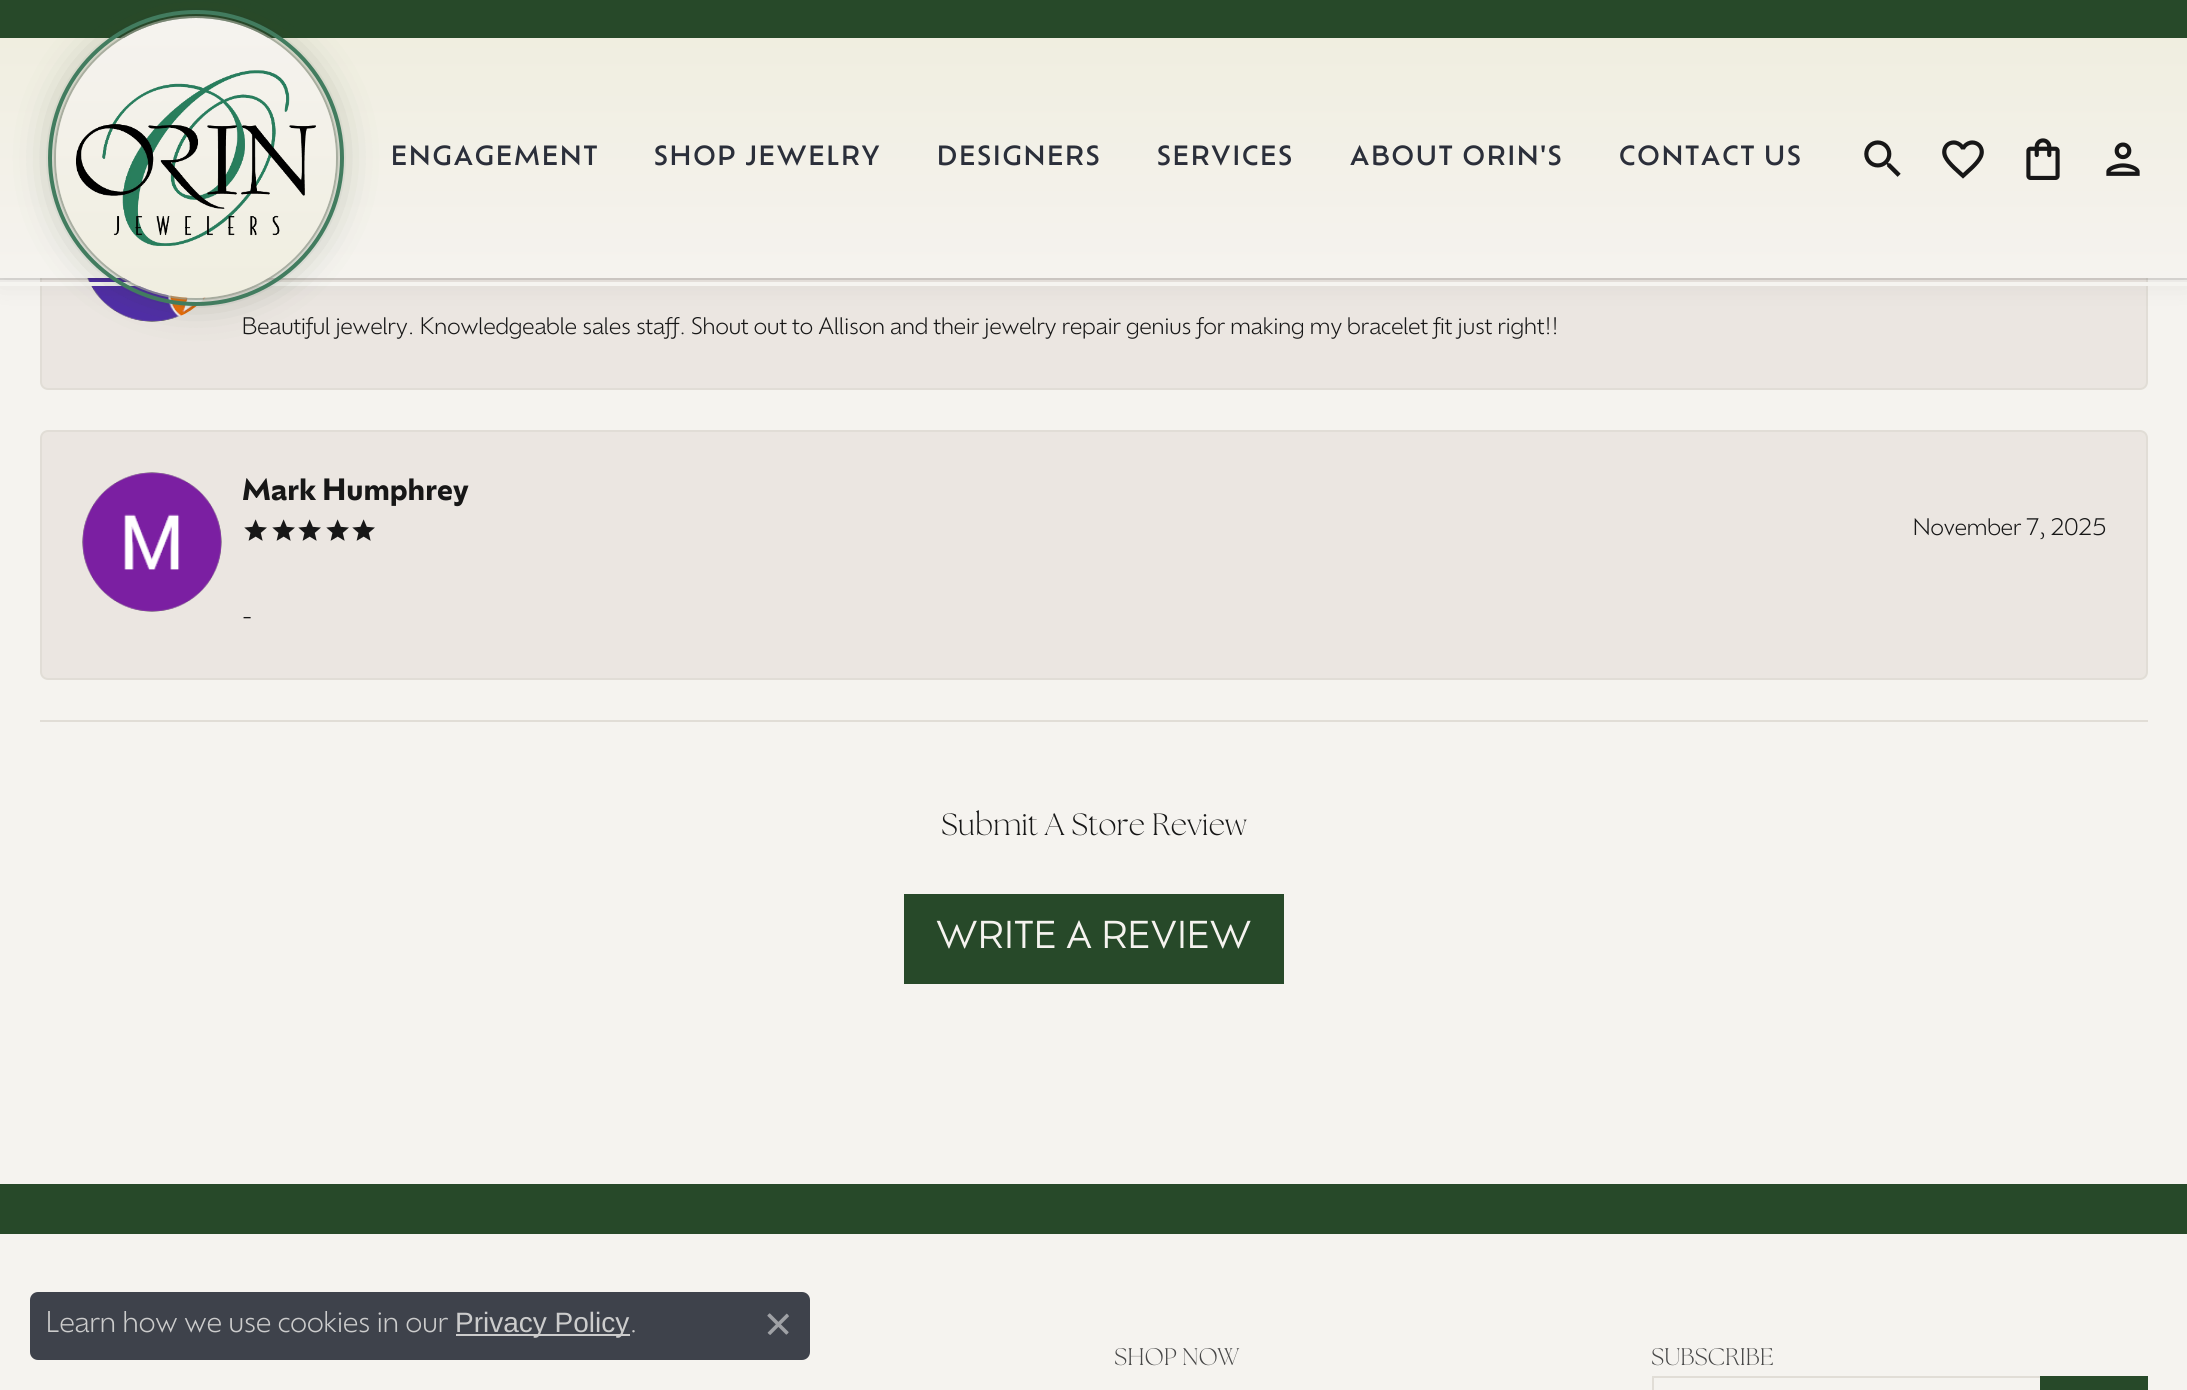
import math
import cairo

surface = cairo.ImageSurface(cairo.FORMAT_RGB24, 2187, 1390)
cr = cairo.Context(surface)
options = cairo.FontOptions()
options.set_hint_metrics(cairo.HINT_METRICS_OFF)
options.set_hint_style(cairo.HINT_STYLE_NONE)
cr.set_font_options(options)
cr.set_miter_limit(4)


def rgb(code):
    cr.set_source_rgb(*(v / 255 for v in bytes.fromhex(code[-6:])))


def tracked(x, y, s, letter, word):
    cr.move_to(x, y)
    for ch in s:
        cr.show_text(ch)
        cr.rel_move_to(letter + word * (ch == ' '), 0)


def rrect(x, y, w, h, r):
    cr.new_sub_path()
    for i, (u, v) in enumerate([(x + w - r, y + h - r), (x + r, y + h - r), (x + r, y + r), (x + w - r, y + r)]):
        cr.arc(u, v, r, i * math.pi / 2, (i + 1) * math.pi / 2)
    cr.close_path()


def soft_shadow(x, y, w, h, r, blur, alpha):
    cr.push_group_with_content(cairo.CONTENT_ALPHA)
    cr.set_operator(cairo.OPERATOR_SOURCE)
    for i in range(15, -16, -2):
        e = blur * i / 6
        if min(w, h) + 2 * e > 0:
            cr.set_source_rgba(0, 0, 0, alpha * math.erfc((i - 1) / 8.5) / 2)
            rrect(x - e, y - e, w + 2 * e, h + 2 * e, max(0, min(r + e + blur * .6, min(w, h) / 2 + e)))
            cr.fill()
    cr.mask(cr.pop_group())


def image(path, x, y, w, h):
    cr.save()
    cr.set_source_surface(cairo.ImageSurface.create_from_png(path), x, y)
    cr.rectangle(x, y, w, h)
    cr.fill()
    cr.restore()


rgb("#f5f3ef")
cr.paint()
rgb("#ebe6e1")
rrect(41, 141, 2106, 248, 7)
cr.fill_preserve()
rgb("#e1ddd6")
cr.stroke()
image("img/6.png", 87, 278, 119, 44)
cr.rectangle(-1, -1, 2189, 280)
cr.set_source_rgba(0, 0, 0, 0.1)
cr.stroke()
rgb("#000000")
soft_shadow(0, 0, 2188, 278, 0, 15, 0.1)
gradient = cairo.LinearGradient(1094, 38, 1094, 278)
gradient.add_color_stop_rgba(0, 0.941, 0.933, 0.878, 1)
gradient.add_color_stop_rgba(1, 0.961, 0.953, 0.937, 1)
cr.set_source(gradient)
cr.rectangle(0, 38, 2187, 240)
cr.fill()
rgb("#274929")
cr.rectangle(0, 0, 2187, 38)
cr.fill()
rgb("#f5f4f0")
cr.rectangle(0, 282, 2187, 4)
cr.fill()
cr.arc(196, 158, 141, 0, 2 * math.pi)
cr.set_source_rgba(0.69, 0.702, 0.651, 0.7)
cr.stroke()
rgb("#2a4028")
soft_shadow(56, 18, 280, 280, 140, 20, 0.35)
gradient = cairo.LinearGradient(196, 18, 196, 298)
gradient.add_color_stop_rgba(0, 0.961, 0.953, 0.937, 1)
gradient.add_color_stop_rgba(1, 0.941, 0.933, 0.878, 1)
cr.set_source(gradient)
cr.arc(196, 158, 140, 0, 2 * math.pi)
cr.fill()
cr.arc(196, 158, 146, 0, 2 * math.pi)
rgb("#427c5f")
cr.set_line_width(4)
cr.stroke()
image("img/1.png", 76, 70, 240, 176)
image("img/2.png", 1864, 140, 37, 37)
image("img/3.png", 1942, 140, 42, 39)
image("img/4.png", 2026, 138, 34, 42)
image("img/5.png", 2106, 142, 34, 34)
rgb("#e1ddd6")
cr.rectangle(40, 720, 2108, 2)
cr.fill()
rgb("#ebe6e1")
rrect(41, 431, 2106, 248, 7)
cr.fill_preserve()
rgb("#e1ddd6")
cr.set_line_width(2)
cr.stroke()
image("img/7.png", 82, 472, 140, 140)
image("img/8.png", 244, 519, 23, 22)
image("img/8.png", 272, 519, 23, 22)
image("img/8.png", 298, 519, 23, 22)
image("img/8.png", 326, 519, 23, 22)
image("img/8.png", 352, 519, 23, 22)
rgb("#274929")
cr.rectangle(904, 894, 380, 90)
cr.fill()
cr.rectangle(0, 1184, 2187, 50)
cr.fill()
cr.rectangle(1653, 1377, 388, 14)
rgb("#e1ddd6")
cr.stroke()
rgb("#274929")
cr.rectangle(2040, 1376, 108, 14)
cr.fill()
cr.set_source_rgba(0.169, 0.184, 0.227, 0.9)
rrect(30, 1292, 780, 68, 8)
cr.fill()
rgb("#cccccc")
cr.rectangle(456, 1334, 174, 2)
cr.fill()
image("img/9.png", 767, 1313, 22, 22)
cr.select_font_face("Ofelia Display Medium")
cr.set_font_size(26)
rgb("#2b2f3a")
for x, y, s in [
    (391, 165, "ENGAGEMENT"),
    (654, 165, "SHOP JEWELRY"),
    (937, 165, "DESIGNERS"),
    (1157, 165, "SERVICES"),
    (1350, 165, "ABOUT ORIN'S"),
    (1619, 165, "CONTACT US"),
]:
    tracked(x, y, s, 2, 0)
cr.select_font_face("Ofelia Display Light")
cr.set_font_size(22.35)
rgb("#171717")
cr.move_to(242, 334)
cr.show_text("Beautiful jewelry. Knowledgeable sales staff.")
cr.move_to(691, 334)
cr.show_text("Shout out to Allison and their jewelry repair genius for making my bracelet fit just right!!")
cr.select_font_face("Ofelia Display", cairo.FONT_SLANT_NORMAL, cairo.FONT_WEIGHT_BOLD)
cr.set_font_size(28.75)
cr.move_to(242, 500)
cr.show_text("Mark Humphrey")
cr.select_font_face("Ofelia Display Light")
cr.set_font_size(22.35)
cr.move_to(1913, 535)
cr.show_text("November 7, 2025")
cr.move_to(242, 624)
cr.show_text("-")
cr.select_font_face("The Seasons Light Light")
cr.set_font_size(30.75)
cr.move_to(941, 835)
cr.show_text("Submit A Store Review")
cr.select_font_face("Ofelia Display")
cr.set_font_size(36.25)
rgb("#f5f3ef")
tracked(936, 948, "WRITE A REVIEW", 0.75, 0)
cr.select_font_face("The Seasons Light Light")
cr.set_font_size(24)
rgb("#484848")
cr.move_to(1114, 1365)
cr.show_text("SHOP NOW")
cr.move_to(1651, 1365)
cr.show_text("SUBSCRIBE")
cr.select_font_face("Ofelia Display Light")
cr.set_font_size(28)
rgb("#cccccc")
cr.move_to(46, 1332)
cr.show_text("Learn how we use cookies in our")
cr.select_font_face("Liberation Sans")
cr.move_to(455, 1332)
cr.show_text("Privacy Policy")
cr.select_font_face("Ofelia Display Light")
cr.move_to(629, 1332)
cr.show_text(".")
surface.write_to_png("page.png")
